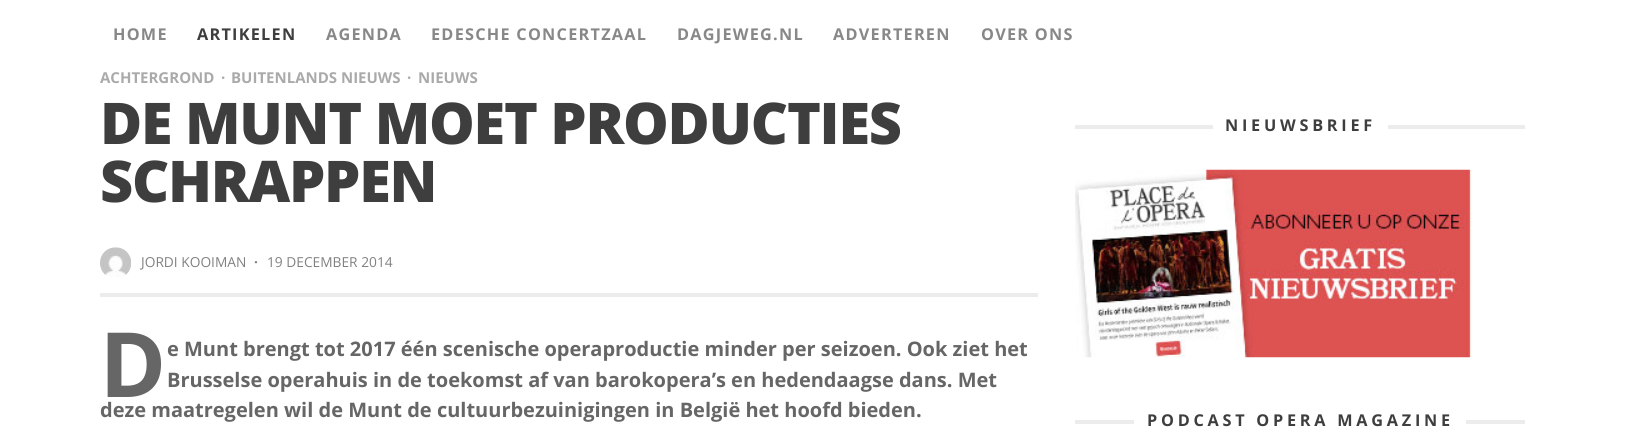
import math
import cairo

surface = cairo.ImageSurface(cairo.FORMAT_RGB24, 1625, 432)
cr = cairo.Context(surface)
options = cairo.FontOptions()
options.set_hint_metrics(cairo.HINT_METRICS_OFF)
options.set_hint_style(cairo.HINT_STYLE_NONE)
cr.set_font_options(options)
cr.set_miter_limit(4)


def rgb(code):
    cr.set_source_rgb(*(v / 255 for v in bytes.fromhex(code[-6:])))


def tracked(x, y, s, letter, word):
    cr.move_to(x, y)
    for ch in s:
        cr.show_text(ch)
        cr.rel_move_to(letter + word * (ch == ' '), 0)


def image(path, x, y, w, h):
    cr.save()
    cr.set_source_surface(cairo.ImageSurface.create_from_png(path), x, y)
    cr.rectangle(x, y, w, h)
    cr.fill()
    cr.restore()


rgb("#ffffff")
cr.paint()
rgb("#ececec")
cr.rectangle(100, 293, 938, 4)
cr.fill()
image("img/1.png", 100, 247, 31, 30)
cr.rectangle(1075, 125, 138, 4)
cr.fill()
cr.rectangle(1388, 125, 137, 4)
cr.fill()
image("img/2.png", 1075, 169, 397, 189)
cr.rectangle(1075, 420, 59, 4)
cr.fill()
cr.rectangle(1466, 420, 59, 4)
cr.fill()
cr.select_font_face("Open Sans", cairo.FONT_SLANT_NORMAL, cairo.FONT_WEIGHT_BOLD)
cr.set_font_size(16.25)
rgb("#888888")
tracked(113, 40, "HOME", 1.25, 0)
rgb("#3e3e3e")
tracked(197, 40, "ARTIKELEN", 1.25, 0)
rgb("#888888")
for x, y, s in [
    (326, 40, "AGENDA"),
    (431, 40, "EDESCHE CONCERTZAAL"),
    (677, 40, "DAGJEWEG.NL"),
    (833, 40, "ADVERTEREN"),
    (981, 40, "OVER ONS"),
]:
    tracked(x, y, s, 1.25, 0)
cr.set_font_size(15)
rgb("#aaaaaa")
for x, y, s in [
    (100, 83, "ACHTERGROND"),
    (221, 83, "·"),
    (231, 83, "BUITENLANDS NIEUWS"),
    (407, 83, "·"),
    (418, 83, "NIEUWS"),
]:
    cr.move_to(x, y)
    cr.show_text(s)
cr.select_font_face("Open Sans ExtraBold")
cr.set_font_size(57.5)
rgb("#3e3e3e")
tracked(100, 144, "DE MUNT MOET PRODUCTIES", -1.25, 0)
tracked(100, 202, "SCHRAPPEN", -1.25, 0)
cr.select_font_face("Open Sans")
cr.set_font_size(13.75)
rgb("#818181")
cr.move_to(141, 267)
cr.show_text("JORDI KOOIMAN")
cr.select_font_face("Open Sans", cairo.FONT_SLANT_NORMAL, cairo.FONT_WEIGHT_BOLD)
cr.move_to(254, 267)
cr.show_text("·")
cr.select_font_face("Open Sans")
cr.move_to(267, 267)
cr.show_text("19 DECEMBER 2014")
cr.select_font_face("Noto Sans", cairo.FONT_SLANT_NORMAL, cairo.FONT_WEIGHT_BOLD)
cr.set_font_size(90)
rgb("#666666")
cr.move_to(100, 397)
cr.show_text("D")
cr.select_font_face("Open Sans", cairo.FONT_SLANT_NORMAL, cairo.FONT_WEIGHT_BOLD)
cr.set_font_size(20)
for x, y, s in [
    (167, 356, "e Munt brengt tot 2017 één scenische operaproductie minder per seizoen. Ook ziet het"),
    (167, 387, "Brusselse operahuis in de toekomst af van barokopera’s en hedendaagse dans. Met"),
    (100, 417, "deze maatregelen wil de Munt de cultuurbezuinigingen in België het hoofd bieden."),
]:
    cr.move_to(x, y)
    cr.show_text(s)
cr.set_font_size(16.25)
rgb("#3e3e3e")
tracked(1225, 131, "NIEUWSBRIEF", 3.75, 0)
tracked(1147, 426, "PODCAST OPERA MAGAZINE", 3.75, 0)
surface.write_to_png("page.png")
